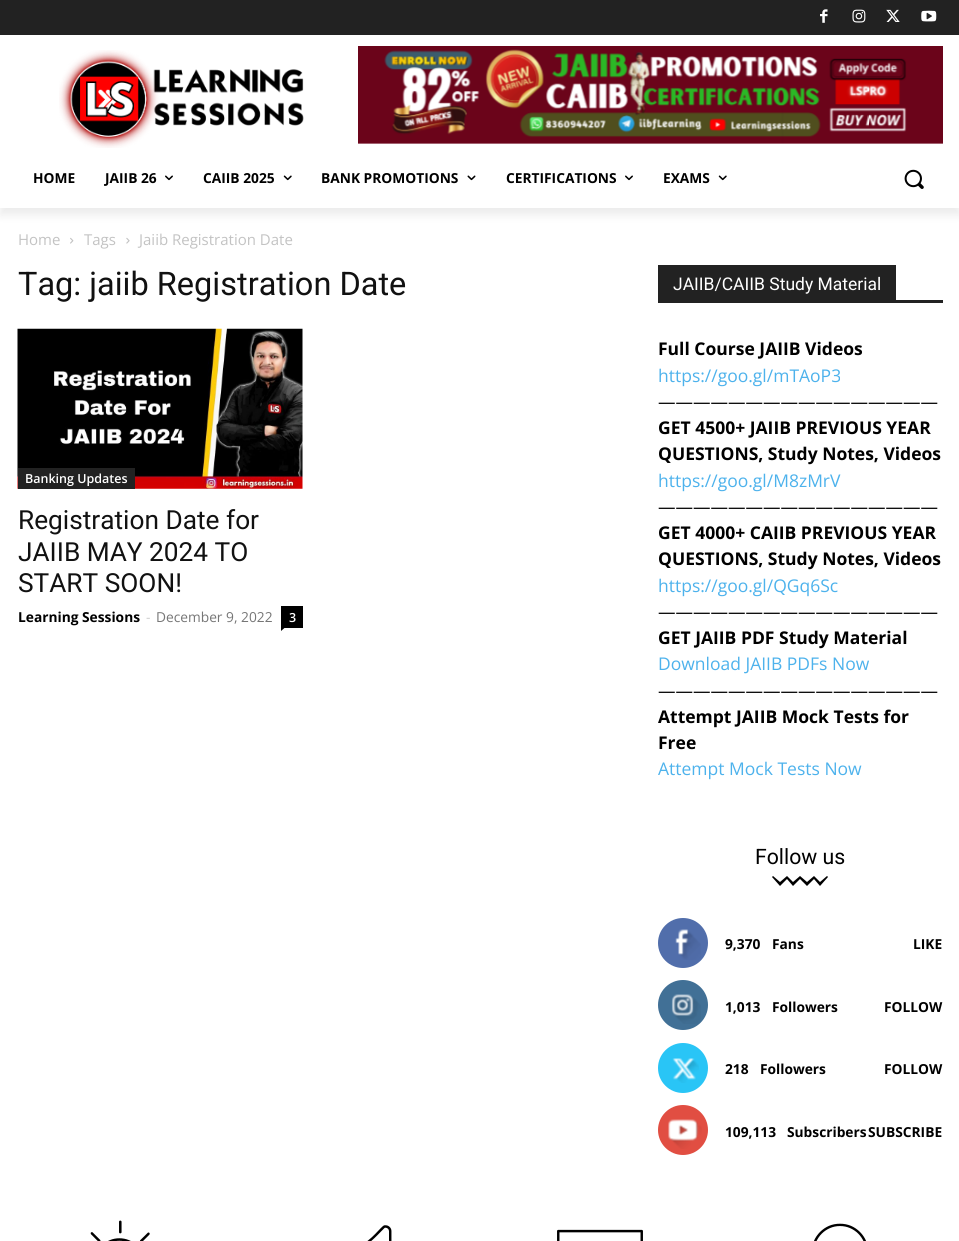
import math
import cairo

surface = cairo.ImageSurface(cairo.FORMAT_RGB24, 959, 1241)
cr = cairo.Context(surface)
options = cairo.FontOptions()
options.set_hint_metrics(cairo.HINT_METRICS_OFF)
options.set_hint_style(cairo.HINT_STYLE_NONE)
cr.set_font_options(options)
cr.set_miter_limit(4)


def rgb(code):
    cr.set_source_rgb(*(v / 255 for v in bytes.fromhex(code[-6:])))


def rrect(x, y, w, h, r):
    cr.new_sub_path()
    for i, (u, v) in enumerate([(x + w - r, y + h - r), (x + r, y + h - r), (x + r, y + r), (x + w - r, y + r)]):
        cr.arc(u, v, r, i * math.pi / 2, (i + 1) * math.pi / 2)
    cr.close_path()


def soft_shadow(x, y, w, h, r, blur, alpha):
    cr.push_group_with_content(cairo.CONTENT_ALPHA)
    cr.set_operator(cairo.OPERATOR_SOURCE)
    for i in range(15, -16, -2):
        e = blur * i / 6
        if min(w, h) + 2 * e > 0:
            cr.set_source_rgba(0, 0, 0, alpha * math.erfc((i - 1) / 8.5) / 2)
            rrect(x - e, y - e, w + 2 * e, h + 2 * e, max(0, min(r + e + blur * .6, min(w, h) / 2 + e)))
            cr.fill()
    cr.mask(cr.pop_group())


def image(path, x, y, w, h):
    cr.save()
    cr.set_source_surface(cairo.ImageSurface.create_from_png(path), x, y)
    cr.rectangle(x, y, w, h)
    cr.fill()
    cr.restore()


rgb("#ffffff")
cr.paint()
rgb("#222222")
cr.rectangle(0, 0, 959, 35)
cr.fill()
image("img/1.png", 820, 9, 8, 14)
image("img/2.png", 852, 9, 14, 14)
image("img/3.png", 886, 9, 14, 13)
image("img/4.png", 921, 10, 16, 12)
image("img/5.png", 59, 50, 245, 98)
image("img/6.png", 358, 46, 585, 98)
cr.save()
cr.set_fill_rule(cairo.FILL_RULE_EVEN_ODD)
cr.new_path()
cr.move_to(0, 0)
cr.line_to(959, 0)
cr.line_to(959, 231)
cr.line_to(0, 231)
cr.close_path()
cr.move_to(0, 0)
cr.line_to(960, 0)
cr.line_to(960, 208)
cr.line_to(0, 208)
cr.close_path()
cr.clip()
rgb("#000000")
soft_shadow(0, 8, 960, 207, 0, 5, 0.08)
cr.restore()
image("img/7.png", 165, 175, 8, 6)
image("img/8.png", 283, 175, 9, 6)
image("img/9.png", 467, 175, 9, 6)
image("img/7.png", 625, 175, 8, 6)
image("img/8.png", 718, 175, 9, 6)
image("img/10.png", 904, 169, 20, 20)
image("img/11.png", 70, 237, 4, 7)
image("img/12.png", 126, 237, 4, 7)
image("img/13.png", 17, 328, 286, 161)
cr.rectangle(18, 468, 117, 21)
cr.fill()
rgb("#000000")
cr.rectangle(281, 606, 22, 22)
cr.fill()
cr.new_path()
cr.move_to(281, 627.5)
cr.line_to(285, 627.5)
cr.line_to(281, 631)
cr.close_path()
cr.fill()
rgb("#222222")
cr.rectangle(658, 300, 285, 3)
cr.fill()
cr.rectangle(658, 265, 238, 35)
cr.fill()
rgb("#000000")
cr.new_path()
cr.move_to(828, 877)
cr.line_to(820, 886)
cr.line_to(814, 879)
cr.line_to(807, 886)
cr.line_to(800, 879)
cr.line_to(793, 886)
cr.line_to(787, 879)
cr.line_to(780, 886)
cr.line_to(772, 877)
cr.line_to(773, 876)
cr.line_to(780, 882)
cr.line_to(787, 876)
cr.line_to(793, 882)
cr.line_to(800, 876)
cr.line_to(807, 882)
cr.line_to(814, 876)
cr.line_to(820, 882)
cr.line_to(827, 876)
cr.close_path()
cr.fill()
rgb("#516eab")
cr.arc(683, 943, 25, 0, 2 * math.pi)
cr.fill()
image("img/14.png", 675, 929, 26, 31)
rgb("#417096")
cr.arc(683, 1005, 25, 0, 2 * math.pi)
cr.fill()
image("img/15.png", 671, 994, 30, 30)
rgb("#29c5f6")
cr.arc(683, 1068, 25, 0, 2 * math.pi)
cr.fill()
image("img/16.png", 672, 1058, 27, 25)
rgb("#e14e42")
cr.arc(683, 1130, 25, 0, 2 * math.pi)
cr.fill()
image("img/17.png", 668, 1119, 34, 30)
image("img/18.png", 90, 1220, 60, 21)
image("img/19.png", 367, 1225, 25, 16)
image("img/20.png", 557, 1229, 86, 12)
image("img/21.png", 814, 1223, 52, 18)
cr.select_font_face("Open Sans", cairo.FONT_SLANT_NORMAL, cairo.FONT_WEIGHT_BOLD)
cr.set_font_size(13.75)
rgb("#000000")
for x, y, s in [
    (33, 183, "HOME"),
    (105, 183, "JAIIB 26"),
    (203, 183, "CAIIB 2025"),
    (321, 183, "BANK PROMOTIONS"),
    (506, 183, "CERTIFICATIONS"),
    (663, 183, "EXAMS"),
]:
    cr.move_to(x, y)
    cr.show_text(s)
cr.select_font_face("Open Sans")
cr.set_font_size(15)
rgb("#c3c3c3")
for x, y, s in [
    (18, 245, "Home"),
    (84, 245, "Tags"),
    (139, 245, "Jaiib Registration Date"),
]:
    cr.move_to(x, y)
    cr.show_text(s)
cr.select_font_face("Roboto")
cr.set_font_size(32.5)
rgb("#111111")
cr.move_to(18, 295)
cr.show_text("Tag: jaiib Registration Date")
cr.select_font_face("Open Sans SemiBold")
cr.set_font_size(12.5)
rgb("#ffffff")
cr.move_to(25, 483)
cr.show_text("Banking Updates")
cr.select_font_face("Roboto")
cr.set_font_size(26.25)
rgb("#111111")
for x, y, s in [
    (18, 529, "Registration Date for"),
    (18, 561, "JAIIB MAY 2024 TO"),
    (18, 592, "START SOON!"),
]:
    cr.move_to(x, y)
    cr.show_text(s)
cr.select_font_face("Open Sans", cairo.FONT_SLANT_NORMAL, cairo.FONT_WEIGHT_BOLD)
cr.set_font_size(13.75)
rgb("#000000")
cr.move_to(18, 622)
cr.show_text("Learning Sessions")
cr.select_font_face("Open Sans")
rgb("#cccccc")
cr.move_to(146, 622)
cr.show_text("-")
rgb("#767676")
cr.move_to(156, 622)
cr.show_text("December 9, 2022")
cr.select_font_face("Open Sans SemiBold")
cr.set_font_size(12.5)
rgb("#ffffff")
cr.move_to(289, 622)
cr.show_text("3")
cr.select_font_face("Roboto")
cr.set_font_size(17.5)
cr.move_to(673, 290)
cr.show_text("JAIIB/CAIIB Study Material")
cr.select_font_face("Open Sans", cairo.FONT_SLANT_NORMAL, cairo.FONT_WEIGHT_BOLD)
rgb("#000000")
cr.move_to(658, 355)
cr.show_text("Full Course JAIIB Videos")
cr.select_font_face("Open Sans")
rgb("#4db2ec")
cr.move_to(658, 382)
cr.show_text("https://goo.gl/mTAoP3")
rgb("#000000")
cr.move_to(658, 408)
cr.show_text("————————————————")
cr.select_font_face("Open Sans", cairo.FONT_SLANT_NORMAL, cairo.FONT_WEIGHT_BOLD)
cr.move_to(658, 434)
cr.show_text("GET 4500+ JAIIB PREVIOUS YEAR")
cr.move_to(658, 460)
cr.show_text("QUESTIONS, Study Notes, Videos")
cr.select_font_face("Open Sans")
rgb("#4db2ec")
cr.move_to(658, 487)
cr.show_text("https://goo.gl/M8zMrV")
rgb("#000000")
cr.move_to(658, 513)
cr.show_text("————————————————")
cr.select_font_face("Open Sans", cairo.FONT_SLANT_NORMAL, cairo.FONT_WEIGHT_BOLD)
cr.move_to(658, 539)
cr.show_text("GET 4000+ CAIIB PREVIOUS YEAR")
cr.move_to(658, 565)
cr.show_text("QUESTIONS, Study Notes, Videos")
cr.select_font_face("Open Sans")
rgb("#4db2ec")
cr.move_to(658, 592)
cr.show_text("https://goo.gl/QGq6Sc")
rgb("#000000")
cr.move_to(658, 618)
cr.show_text("————————————————")
cr.select_font_face("Open Sans", cairo.FONT_SLANT_NORMAL, cairo.FONT_WEIGHT_BOLD)
cr.move_to(658, 644)
cr.show_text("GET JAIIB PDF Study Material")
cr.select_font_face("Open Sans")
rgb("#4db2ec")
cr.move_to(658, 670)
cr.show_text("Download JAIIB PDFs Now")
rgb("#000000")
cr.move_to(658, 697)
cr.show_text("————————————————")
cr.select_font_face("Open Sans", cairo.FONT_SLANT_NORMAL, cairo.FONT_WEIGHT_BOLD)
cr.move_to(658, 723)
cr.show_text("Attempt JAIIB Mock Tests for")
cr.move_to(658, 749)
cr.show_text("Free")
cr.select_font_face("Open Sans")
rgb("#4db2ec")
cr.move_to(658, 775)
cr.show_text("Attempt Mock Tests Now")
cr.select_font_face("Roboto")
cr.set_font_size(21.25)
rgb("#000000")
cr.move_to(755, 864)
cr.show_text("Follow us")
cr.select_font_face("Open Sans", cairo.FONT_SLANT_NORMAL, cairo.FONT_WEIGHT_BOLD)
cr.set_font_size(13.75)
for x, y, s in [
    (725, 949, "9,370"),
    (772, 949, "Fans"),
    (913, 949, "LIKE"),
    (725, 1012, "1,013"),
    (772, 1012, "Followers"),
    (884, 1012, "FOLLOW"),
    (725, 1074, "218"),
    (760, 1074, "Followers"),
    (884, 1074, "FOLLOW"),
    (725, 1137, "109,113"),
    (787, 1137, "Subscribers"),
    (868, 1137, "SUBSCRIBE"),
]:
    cr.move_to(x, y)
    cr.show_text(s)
surface.write_to_png("page.png")
